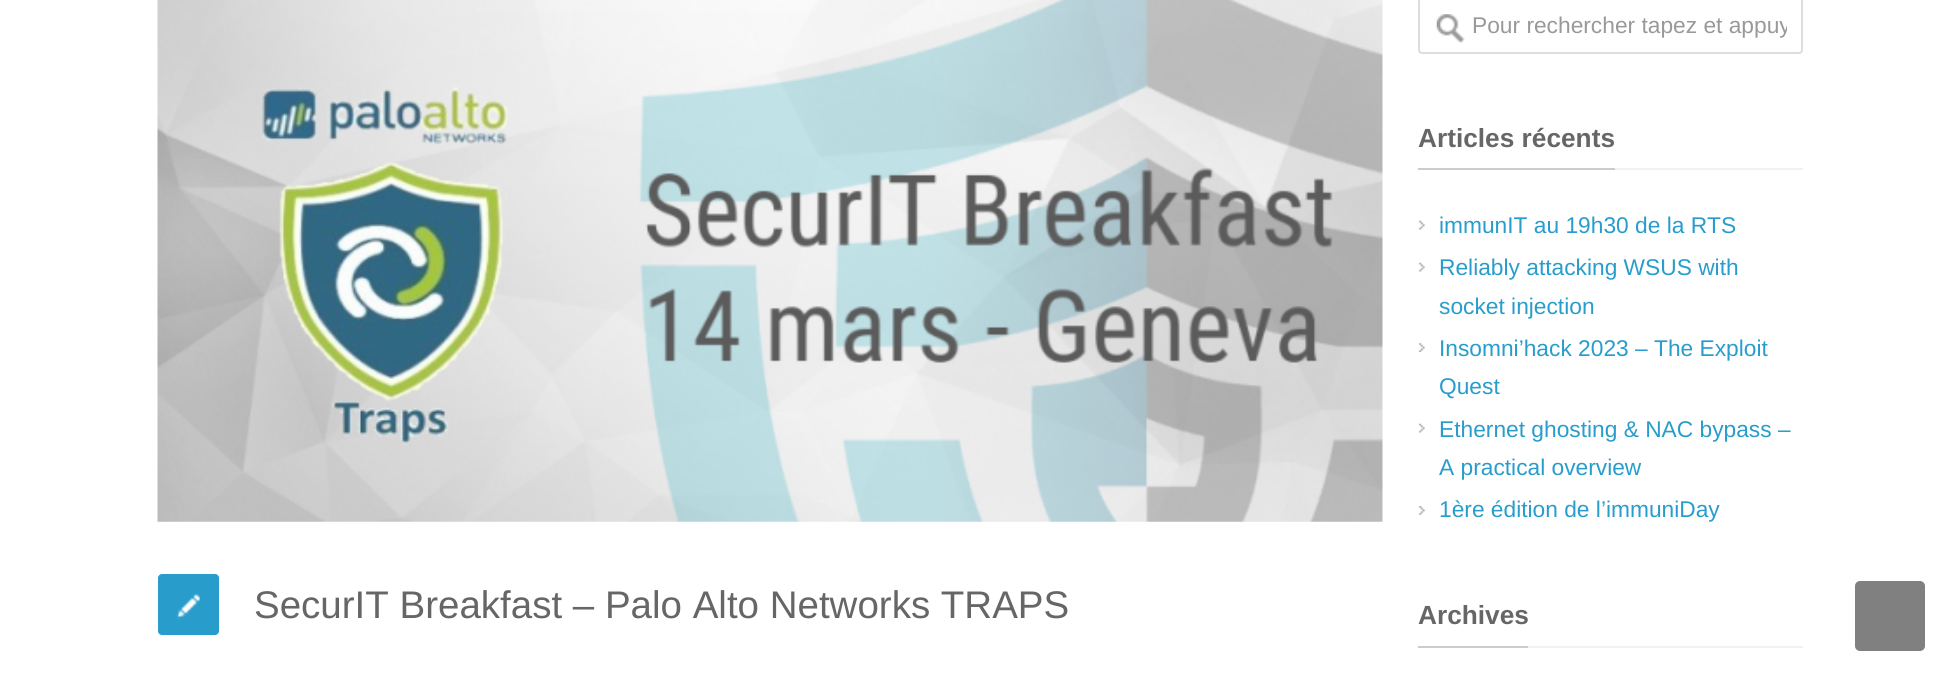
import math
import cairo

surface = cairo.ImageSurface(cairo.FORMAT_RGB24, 1959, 685)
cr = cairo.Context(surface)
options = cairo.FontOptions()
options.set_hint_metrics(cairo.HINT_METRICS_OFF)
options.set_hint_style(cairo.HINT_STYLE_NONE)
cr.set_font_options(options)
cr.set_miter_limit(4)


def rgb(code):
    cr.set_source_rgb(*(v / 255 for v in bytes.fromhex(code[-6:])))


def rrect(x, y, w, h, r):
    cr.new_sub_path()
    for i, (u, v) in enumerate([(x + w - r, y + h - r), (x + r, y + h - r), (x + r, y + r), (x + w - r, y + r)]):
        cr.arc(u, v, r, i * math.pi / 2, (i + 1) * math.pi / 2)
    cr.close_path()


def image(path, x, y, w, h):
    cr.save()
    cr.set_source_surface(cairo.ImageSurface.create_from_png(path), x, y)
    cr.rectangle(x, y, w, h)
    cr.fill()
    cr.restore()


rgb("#ffffff")
cr.paint()
image("img/1.png", 157, 0, 1226, 522)
rgb("#289dcc")
rrect(158, 574, 61, 61, 4)
cr.fill()
image("img/2.png", 176, 593, 24, 26)
image("img/3.png", 1436, 14, 29, 29)
rrect(1419, -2, 383, 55, 3)
rgb("#dddddd")
cr.stroke()
rgb("#f1f1f1")
cr.rectangle(1615, 168, 188, 2)
cr.fill()
rgb("#cccccc")
cr.rectangle(1418, 168, 197, 2)
cr.fill()
image("img/4.png", 1418, 220, 7, 10)
image("img/4.png", 1418, 262, 7, 10)
image("img/5.png", 1418, 343, 7, 9)
image("img/4.png", 1418, 423, 7, 10)
image("img/6.png", 1418, 506, 7, 9)
rgb("#f1f1f1")
cr.rectangle(1528, 646, 275, 2)
cr.fill()
rgb("#cccccc")
cr.rectangle(1418, 646, 110, 2)
cr.fill()
rgb("#808080")
rrect(1855, 581, 70, 70, 5)
cr.fill()
cr.select_font_face("Liberation Sans")
cr.set_font_size(38.5)
rgb("#666666")
cr.move_to(254, 618)
cr.show_text("SecurIT Breakfast – Palo Alto Networks TRAPS")
cr.save()
cr.rectangle(1472, 12, 315, 27)
cr.clip()
cr.set_font_size(22.75)
rgb("#999999")
cr.move_to(1472, 33)
cr.show_text("Pour rechercher tapez et appuy")
cr.restore()
cr.select_font_face("Liberation Sans", cairo.FONT_SLANT_NORMAL, cairo.FONT_WEIGHT_BOLD)
cr.set_font_size(26.25)
cr.move_to(1418, 147)
cr.show_text("Articles récents")
cr.select_font_face("Liberation Sans")
cr.set_font_size(22.75)
rgb("#289dcc")
for x, y, s in [
    (1439, 233, "immunIT au 19h30 de la RTS"),
    (1439, 275, "Reliably attacking WSUS with"),
    (1439, 314, "socket injection"),
    (1439, 356, "Insomni’hack 2023 – The Exploit"),
    (1439, 394, "Quest"),
    (1439, 437, "Ethernet ghosting & NAC bypass –"),
    (1439, 475, "A practical overview"),
    (1439, 517, "1ère édition de l’immuniDay"),
]:
    cr.move_to(x, y)
    cr.show_text(s)
cr.select_font_face("Liberation Sans", cairo.FONT_SLANT_NORMAL, cairo.FONT_WEIGHT_BOLD)
cr.set_font_size(26.25)
rgb("#666666")
cr.move_to(1418, 624)
cr.show_text("Archives")
surface.write_to_png("page.png")
